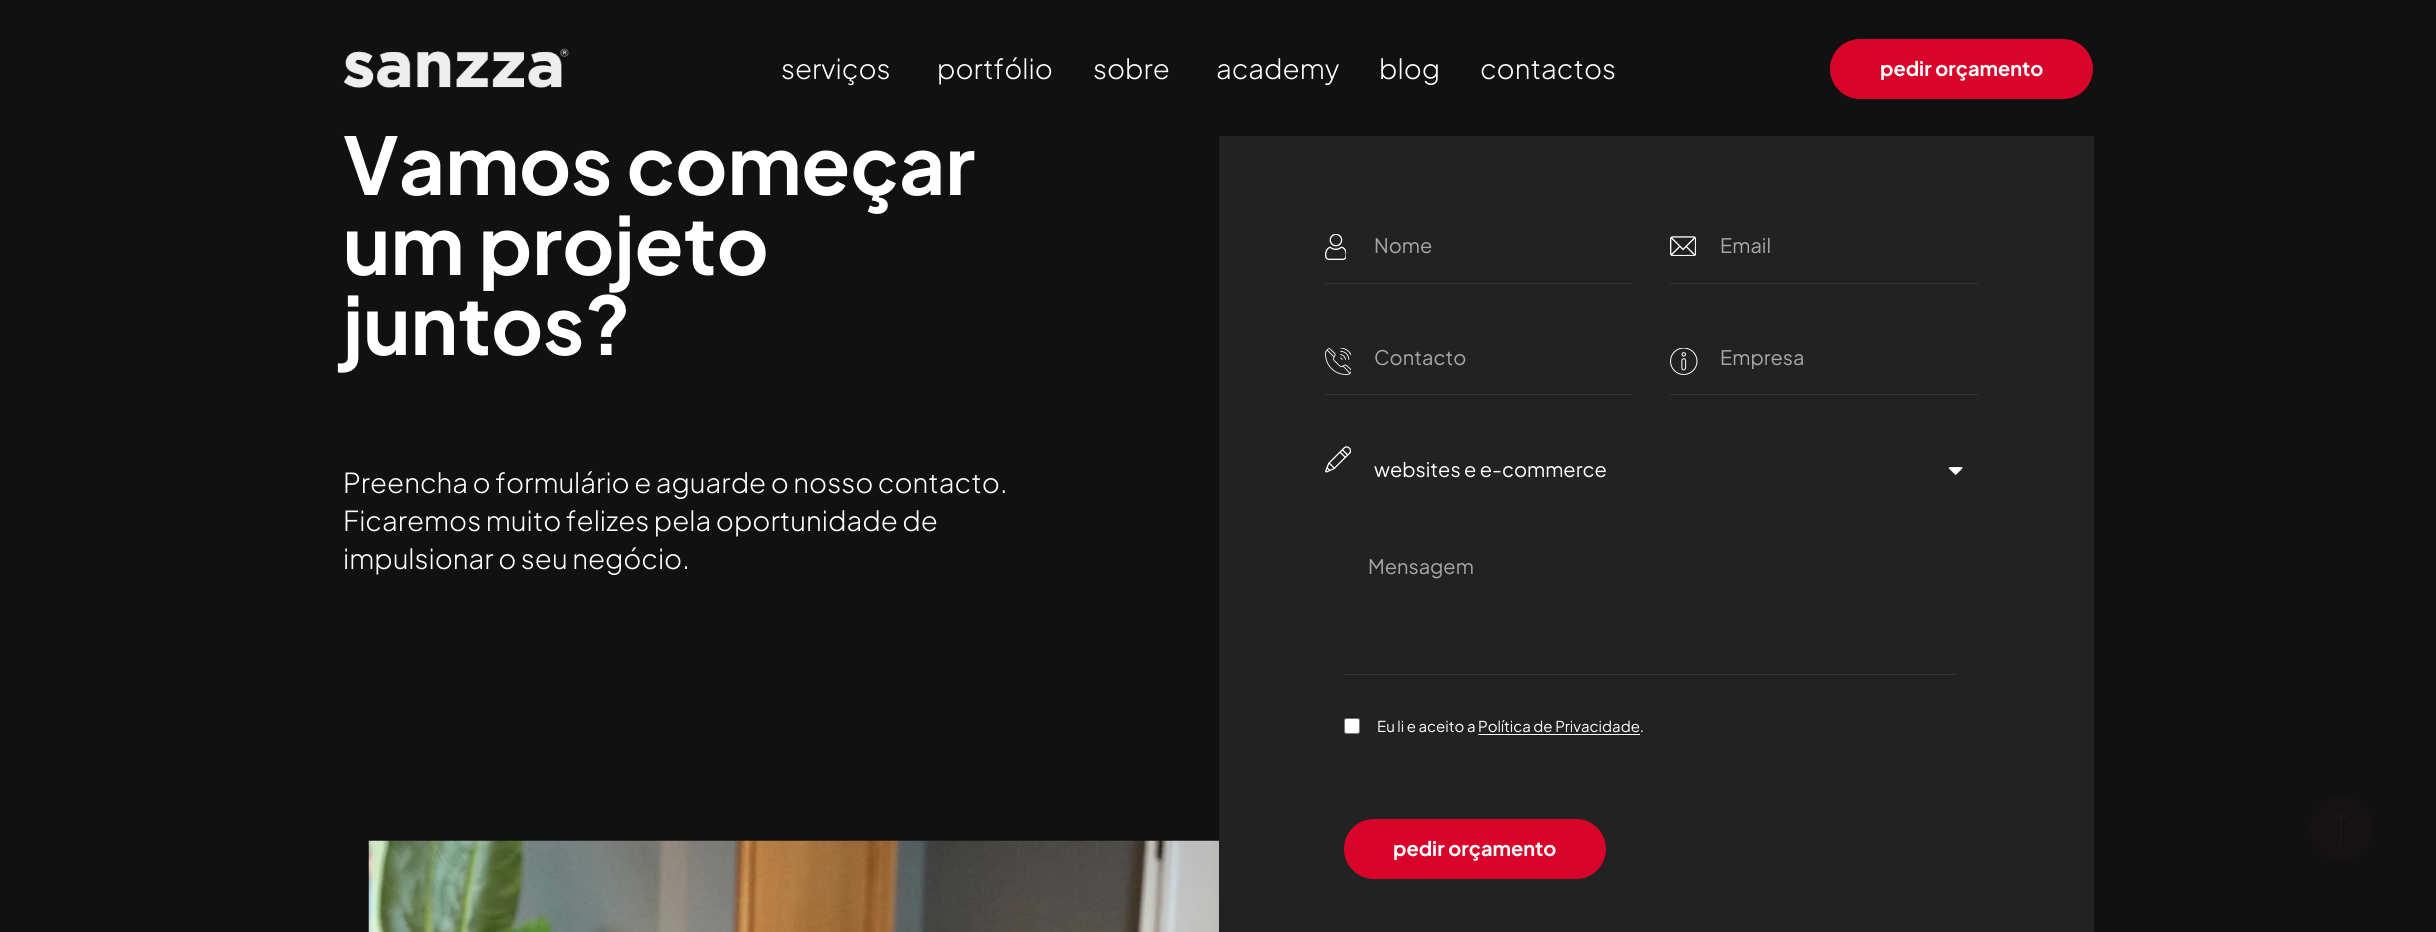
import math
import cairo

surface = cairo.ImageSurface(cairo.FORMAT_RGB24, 2436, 932)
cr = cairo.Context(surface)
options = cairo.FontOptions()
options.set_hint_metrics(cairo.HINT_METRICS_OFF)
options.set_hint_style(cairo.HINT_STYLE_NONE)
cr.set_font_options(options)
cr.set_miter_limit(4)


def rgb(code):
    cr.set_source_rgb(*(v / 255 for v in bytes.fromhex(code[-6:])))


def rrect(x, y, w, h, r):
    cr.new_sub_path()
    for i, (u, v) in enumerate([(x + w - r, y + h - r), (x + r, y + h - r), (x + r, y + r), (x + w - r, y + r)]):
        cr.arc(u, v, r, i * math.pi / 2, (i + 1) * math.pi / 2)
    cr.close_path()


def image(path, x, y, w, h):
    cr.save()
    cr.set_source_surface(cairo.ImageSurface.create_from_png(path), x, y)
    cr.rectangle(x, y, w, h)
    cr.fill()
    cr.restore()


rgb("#111111")
cr.paint()
image("img/1.png", 343, 48, 226, 40)
rgb("#d8042a")
rrect(1830, 39, 263, 60, 30)
cr.fill()
rgb("#222222")
cr.rectangle(1219, 136, 875, 796)
cr.fill()
image("img/2.png", 1325, 234, 21, 26)
rgb("#34313b")
cr.rectangle(1325, 283, 308, 1)
cr.fill()
image("img/3.png", 1670, 236, 26, 20)
cr.rectangle(1670, 283, 308, 1)
cr.fill()
image("img/4.png", 1325, 348, 26, 27)
cr.rectangle(1325, 394, 308, 1)
cr.fill()
image("img/5.png", 1670, 348, 28, 27)
cr.rectangle(1670, 394, 308, 1)
cr.fill()
image("img/6.png", 1325, 446, 26, 27)
image("img/7.png", 1948, 467, 15, 8)
cr.rectangle(1344, 674, 612, 1)
cr.fill()
rgb("#ffffff")
rrect(1344.5, 718.5, 15, 15, 2)
cr.fill_preserve()
rgb("#767676")
cr.set_line_width(1)
cr.stroke()
rgb("#ffffff")
cr.rectangle(1478, 734, 162, 1)
cr.fill()
rgb("#d8042a")
rrect(1344, 819, 262, 60, 30)
cr.fill()
image("img/8.png", 368, 840, 851, 92)
rgb("#161112")
cr.arc(2341.5, 828.5, 32.5, 0, 2 * math.pi)
cr.fill()
rgb("#171717")
cr.new_path()
cr.move_to(2352, 823.5)
cr.line_to(2341, 812.5)
cr.line_to(2330.5, 823.5)
cr.line_to(2332, 824.5)
cr.line_to(2340, 816.5)
cr.line_to(2340, 845)
cr.line_to(2342, 845)
cr.line_to(2342, 816.5)
cr.line_to(2350.5, 825)
cr.close_path()
cr.fill()
cr.select_font_face("Plus Jakarta Sans Light")
cr.set_font_size(27.5)
rgb("#ffffff")
for x, y, s in [
    (781, 79, "serviços"),
    (937, 79, "portfólio"),
    (1093, 79, "sobre"),
    (1216, 79, "academy"),
    (1379, 79, "blog"),
    (1480, 79, "contactos"),
]:
    cr.move_to(x, y)
    cr.show_text(s)
cr.select_font_face("Plus Jakarta Sans", cairo.FONT_SLANT_NORMAL, cairo.FONT_WEIGHT_BOLD)
cr.set_font_size(20)
cr.move_to(1880, 76)
cr.show_text("pedir orçamento")
cr.set_font_size(80)
cr.move_to(343, 195)
cr.show_text("Vamos começar")
rgb("#111111")
cr.rectangle(344, 135, 54, 1)
cr.fill()
rgb("#ffffff")
cr.move_to(343, 275)
cr.show_text("um projeto")
cr.move_to(343, 355)
cr.show_text("juntos?")
cr.select_font_face("Plus Jakarta Sans Light")
cr.set_font_size(27.5)
for x, y, s in [
    (343, 493, "Preencha o formulário e aguarde o nosso contacto."),
    (343, 531, "Ficaremos muito felizes pela oportunidade de"),
    (343, 569, "impulsionar o seu negócio."),
]:
    cr.move_to(x, y)
    cr.show_text(s)
cr.select_font_face("Plus Jakarta Sans")
cr.set_font_size(20)
rgb("#a7a7a7")
for x, y, s in [
    (1374, 253, "Nome"),
    (1720, 253, "Email"),
    (1374, 365, "Contacto"),
    (1720, 365, "Empresa"),
]:
    cr.move_to(x, y)
    cr.show_text(s)
rgb("#ffffff")
cr.move_to(1374, 477)
cr.show_text("websites e e-commerce")
rgb("#a7a7a7")
cr.move_to(1368, 574)
cr.show_text("Mensagem")
cr.set_font_size(15)
rgb("#ffffff")
cr.move_to(1377, 732)
cr.show_text("Eu li e aceito a Política de Privacidade.")
cr.select_font_face("Plus Jakarta Sans", cairo.FONT_SLANT_NORMAL, cairo.FONT_WEIGHT_BOLD)
cr.set_font_size(20)
cr.move_to(1393, 856)
cr.show_text("pedir orçamento")
surface.write_to_png("page.png")
